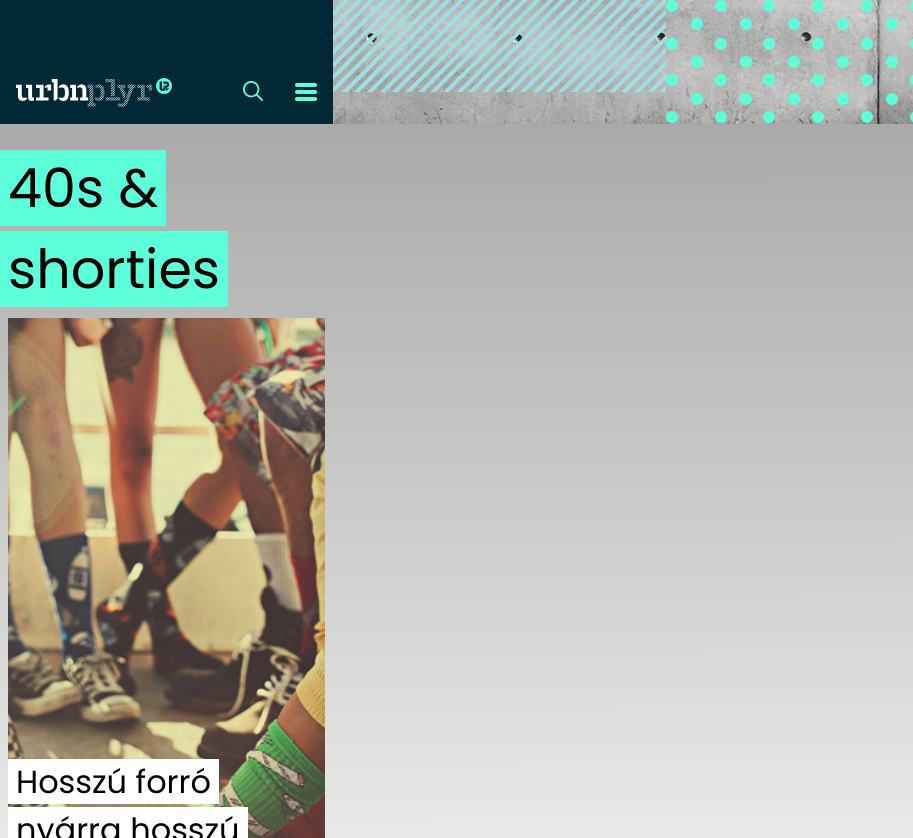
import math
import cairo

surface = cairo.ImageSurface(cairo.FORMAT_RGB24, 913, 838)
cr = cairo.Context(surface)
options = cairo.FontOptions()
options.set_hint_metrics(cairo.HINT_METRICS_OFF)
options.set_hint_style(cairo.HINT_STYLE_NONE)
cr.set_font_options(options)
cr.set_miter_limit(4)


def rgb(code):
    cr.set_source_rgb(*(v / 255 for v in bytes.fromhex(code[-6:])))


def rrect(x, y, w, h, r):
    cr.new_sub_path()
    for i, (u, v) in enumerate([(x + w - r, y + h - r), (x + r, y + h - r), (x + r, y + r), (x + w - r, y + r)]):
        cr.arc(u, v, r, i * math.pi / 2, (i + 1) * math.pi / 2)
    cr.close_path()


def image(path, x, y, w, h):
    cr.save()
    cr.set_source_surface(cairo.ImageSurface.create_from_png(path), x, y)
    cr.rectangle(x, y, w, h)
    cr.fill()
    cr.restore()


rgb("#ffffff")
cr.paint()
gradient = cairo.LinearGradient(456, 0, 457, 838)
gradient.add_color_stop_rgba(0, 0.62, 0.62, 0.62, 1)
gradient.add_color_stop_rgba(1, 0.914, 0.918, 0.906, 1)
cr.set_source(gradient)
cr.rectangle(0, 124, 913, 714)
cr.fill()
image("img/1.png", 333, 0, 580, 124)
rgb("#002835")
cr.rectangle(0, 0, 333, 124)
cr.fill()
image("img/2.png", 16, 78, 156, 29)
image("img/3.png", 243, 81, 20, 20)
rgb("#5cffda")
rrect(295, 83, 22, 4, 2)
cr.fill()
rrect(295, 90, 22, 4, 2)
cr.fill()
rrect(295, 97, 22, 4, 2)
cr.fill()
image("img/4.png", 333, 0, 333, 92)
image("img/5.png", 666, 0, 247, 123)
for x, y, w, h, color in [
    (0, 150, 8, 76, "#5cffda"),
    (8, 150, 158, 76, "#5cffda"),
    (0, 231, 8, 76, "#5cffda"),
    (8, 231, 220, 76, "#5cffda"),
]:
    rgb(color)
    cr.rectangle(x, y, w, h)
    cr.fill()
image("img/6.png", 8, 318, 317, 520)
for x, y, w, h, color in [
    (8, 759, 8, 45, "#ffffff"),
    (16, 759, 203, 45, "#ffffff"),
    (8, 807, 8, 31, "#ffffff"),
    (16, 807, 232, 31, "#ffffff"),
]:
    rgb(color)
    cr.rectangle(x, y, w, h)
    cr.fill()
cr.select_font_face("Poppins")
cr.set_font_size(54)
rgb("#000000")
cr.move_to(8, 207)
cr.show_text("40s &")
cr.move_to(8, 288)
cr.show_text("shorties")
cr.set_font_size(32)
cr.move_to(16, 793)
cr.show_text("Hosszú forró")
cr.move_to(16, 841)
cr.show_text("nyárra hosszú")
surface.write_to_png("page.png")
